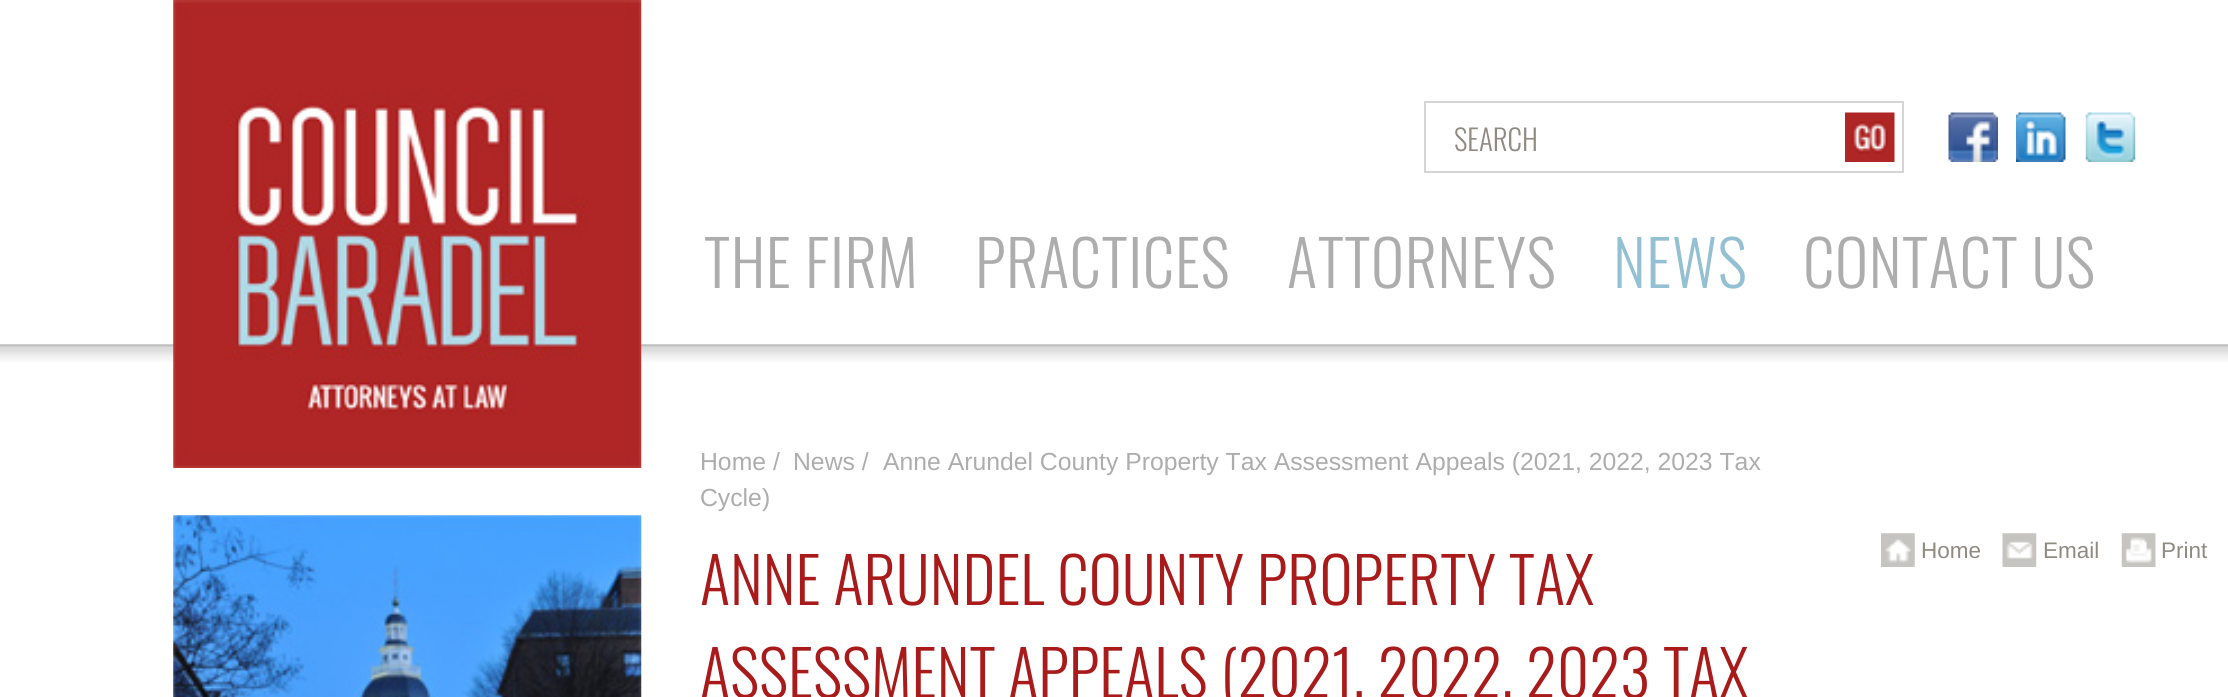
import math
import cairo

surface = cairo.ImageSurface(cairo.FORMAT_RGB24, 2228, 697)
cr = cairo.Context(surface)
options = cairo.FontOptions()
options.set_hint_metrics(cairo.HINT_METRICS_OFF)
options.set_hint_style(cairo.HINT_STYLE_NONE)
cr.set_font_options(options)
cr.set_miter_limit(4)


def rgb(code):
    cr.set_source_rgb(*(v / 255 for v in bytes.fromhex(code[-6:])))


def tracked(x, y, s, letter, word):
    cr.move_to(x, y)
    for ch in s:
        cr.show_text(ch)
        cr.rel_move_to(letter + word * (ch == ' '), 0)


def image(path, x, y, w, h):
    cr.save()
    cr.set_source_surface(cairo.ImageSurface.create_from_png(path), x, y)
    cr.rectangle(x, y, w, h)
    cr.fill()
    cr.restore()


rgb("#ffffff")
cr.paint()
image("img/6.png", 0, 344, 2228, 18)
image("img/1.png", 173, 0, 469, 468)
cr.rectangle(1425, 102, 478, 70)
rgb("#d4d5d6")
cr.stroke()
image("img/2.png", 1845, 112, 50, 50)
image("img/3.png", 1948, 112, 50, 50)
image("img/4.png", 2016, 112, 50, 50)
image("img/5.png", 2085, 112, 51, 50)
image("img/7.png", 173, 515, 469, 182)
image("img/8.png", 1881, 533, 34, 34)
image("img/9.png", 2002, 533, 35, 34)
image("img/10.png", 2121, 533, 35, 34)
cr.select_font_face("Oswald Light")
cr.set_font_size(29)
rgb("#8f8a82")
cr.move_to(1454, 151)
cr.show_text("SEARCH")
cr.set_font_size(63)
rgb("#adadad")
for x, y, s in [
    (704, 288, "THE FIRM"),
    (975, 288, "PRACTICES"),
    (1287, 288, "ATTORNEYS"),
]:
    tracked(x, y, s, 0.6, 0)
rgb("#93c0d2")
tracked(1613, 288, "NEWS", 0.6, 0)
rgb("#adadad")
tracked(1803, 288, "CONTACT US", 0.6, 0)
cr.select_font_face("Liberation Sans")
cr.set_font_size(24.75)
for x, y, s in [
    (700, 470, "Home /"),
    (793, 470, "News /"),
    (883, 470, "Anne Arundel County Property Tax Assessment Appeals (2021, 2022, 2023 Tax"),
    (700, 506, "Cycle)"),
]:
    cr.move_to(x, y)
    cr.show_text(s)
cr.select_font_face("Oswald Light")
cr.set_font_size(63)
rgb("#a91a1a")
cr.move_to(700, 605)
cr.show_text("ANNE ARUNDEL COUNTY PROPERTY TAX")
cr.move_to(700, 698)
cr.show_text("ASSESSMENT APPEALS (2021, 2022, 2023 TAX")
cr.select_font_face("Liberation Sans")
cr.set_font_size(22.5)
rgb("#8f8a82")
for x, y, s in [
    (1921, 558, "Home"),
    (2043, 558, "Email"),
    (2161, 558, "Print"),
]:
    cr.move_to(x, y)
    cr.show_text(s)
surface.write_to_png("page.png")
